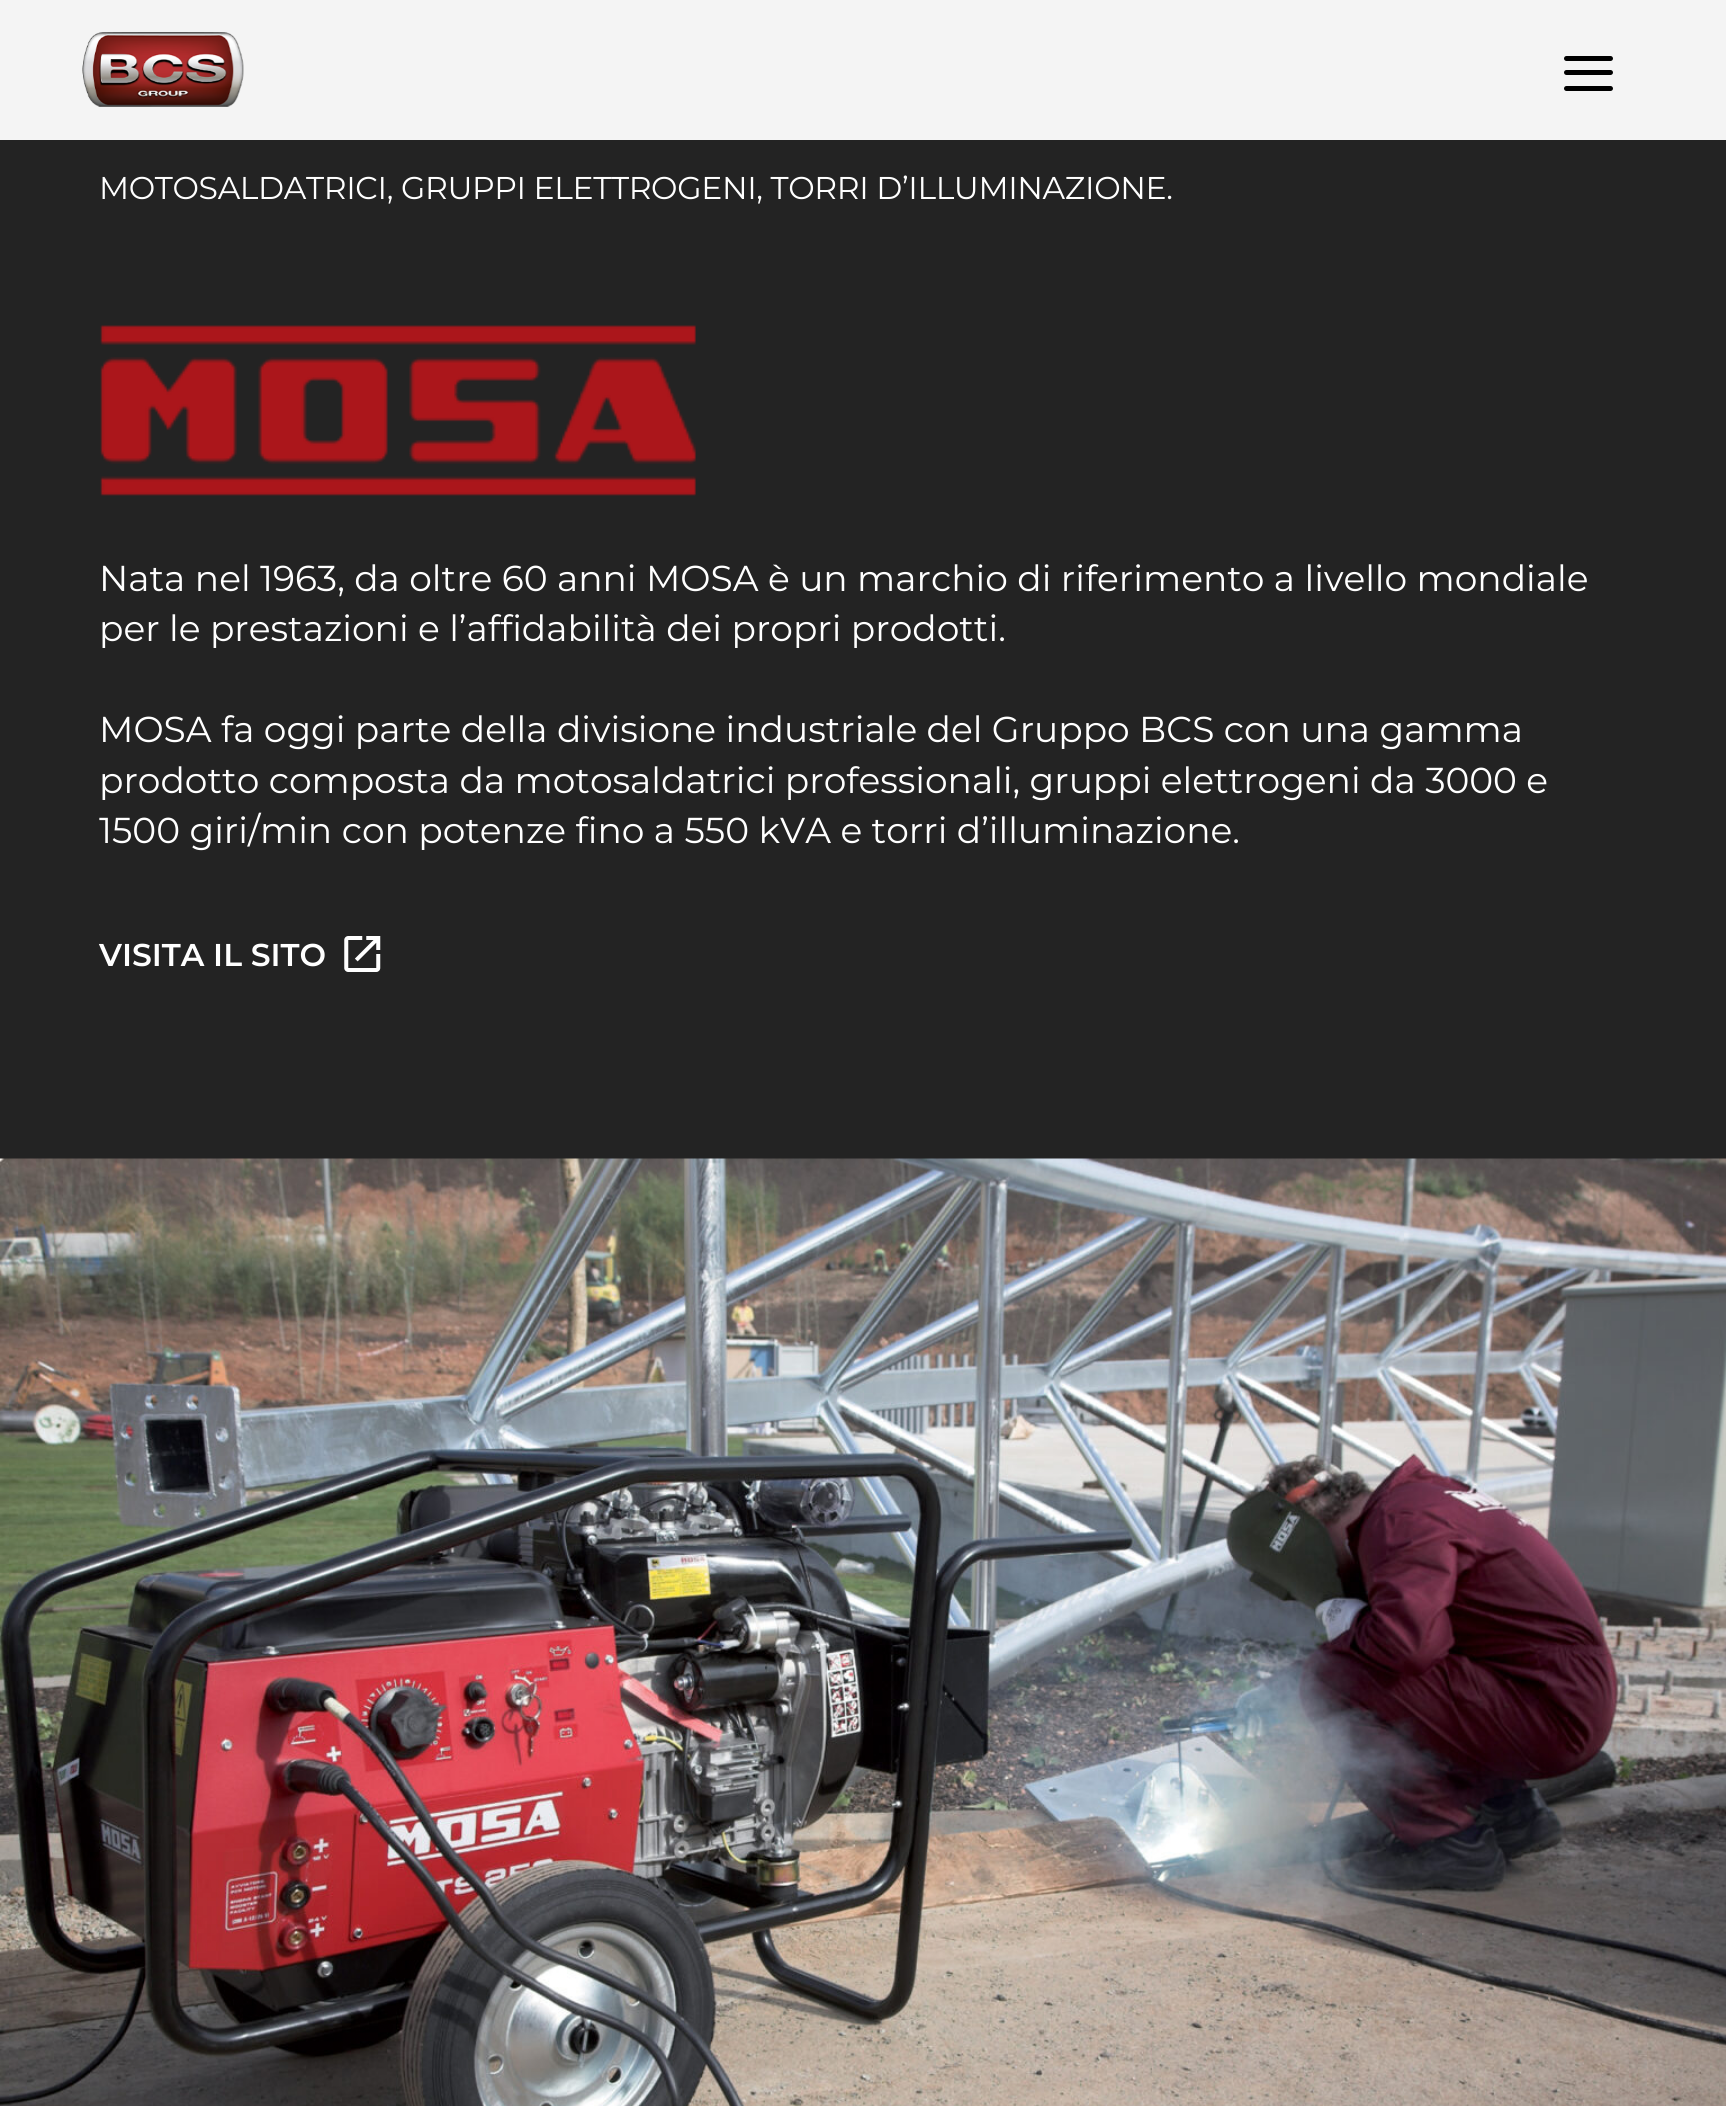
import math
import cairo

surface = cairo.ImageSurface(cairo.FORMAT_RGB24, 1726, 2106)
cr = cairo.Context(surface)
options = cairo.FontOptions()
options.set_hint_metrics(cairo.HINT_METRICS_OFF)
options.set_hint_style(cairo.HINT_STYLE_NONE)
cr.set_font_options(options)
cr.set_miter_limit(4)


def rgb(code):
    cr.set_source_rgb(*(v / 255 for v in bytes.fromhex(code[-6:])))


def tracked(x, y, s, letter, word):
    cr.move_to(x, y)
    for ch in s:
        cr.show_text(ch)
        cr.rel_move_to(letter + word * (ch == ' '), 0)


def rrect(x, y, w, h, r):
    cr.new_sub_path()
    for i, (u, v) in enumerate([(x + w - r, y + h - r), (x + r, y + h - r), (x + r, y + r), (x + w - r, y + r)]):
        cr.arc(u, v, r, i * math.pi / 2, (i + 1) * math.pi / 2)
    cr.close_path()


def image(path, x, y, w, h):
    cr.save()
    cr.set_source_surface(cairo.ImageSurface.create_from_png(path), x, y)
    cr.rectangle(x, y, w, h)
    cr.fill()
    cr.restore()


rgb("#232323")
cr.paint()
rgb("#f4f4f4")
cr.rectangle(0, 0, 1726, 140)
cr.fill()
image("img/1.png", 82, 32, 162, 75)
rgb("#000000")
rrect(1564, 56, 49, 5, 2.5)
cr.fill()
rrect(1564, 70, 49, 5, 2.5)
cr.fill()
rrect(1564, 86, 49, 5, 2.5)
cr.fill()
image("img/2.png", 100, 325, 596, 171)
image("img/3.png", 344, 936, 37, 36)
image("img/4.png", 0, 1158, 1726, 948)
cr.select_font_face("Montserrat")
cr.set_font_size(31.5)
rgb("#ffffff")
tracked(99, 199, "MOTOSALDATRICI, GRUPPI ELETTROGENI, TORRI D’ILLUMINAZIONE.", -0.35, 0)
cr.set_font_size(36)
for x, y, s in [
    (99, 591, "Nata nel 1963, da oltre 60 anni MOSA è un marchio di riferimento a livello mondiale"),
    (99, 641, "per le prestazioni e l’affidabilità dei propri prodotti."),
    (99, 742, "MOSA fa oggi parte della divisione industriale del Gruppo BCS con una gamma"),
    (99, 793, "prodotto composta da motosaldatrici professionali, gruppi elettrogeni da 3000 e"),
    (99, 843, "1500 giri/min con potenze fino a 550 kVA e torri d’illuminazione."),
]:
    cr.move_to(x, y)
    cr.show_text(s)
cr.select_font_face("Montserrat SemiBold")
cr.set_font_size(31.5)
cr.move_to(99, 966)
cr.show_text("VISITA IL SITO")
surface.write_to_png("page.png")
